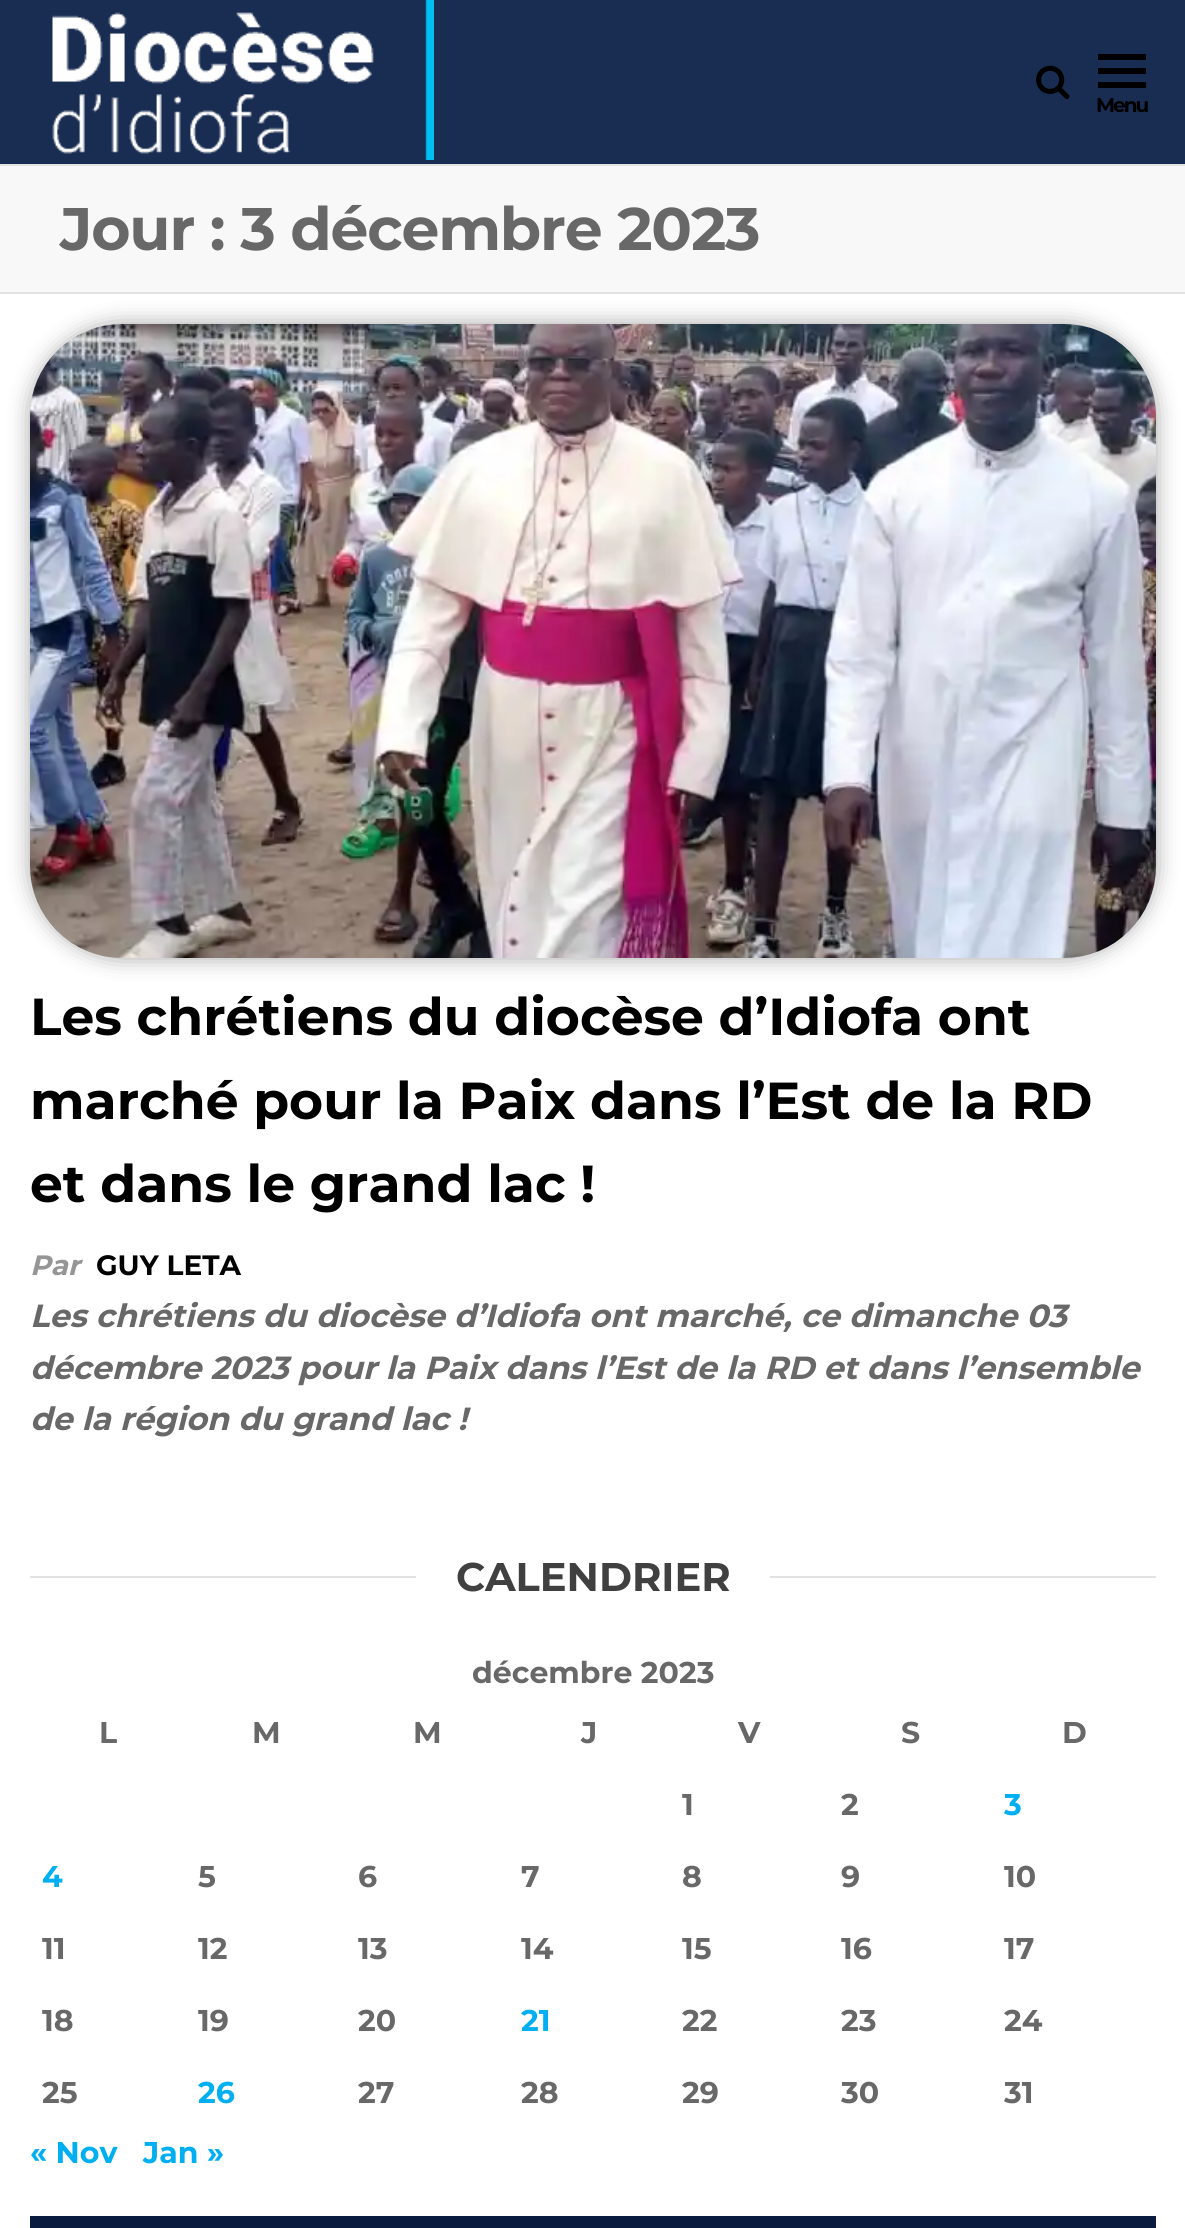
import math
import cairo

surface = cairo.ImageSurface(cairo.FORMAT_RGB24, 1185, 2228)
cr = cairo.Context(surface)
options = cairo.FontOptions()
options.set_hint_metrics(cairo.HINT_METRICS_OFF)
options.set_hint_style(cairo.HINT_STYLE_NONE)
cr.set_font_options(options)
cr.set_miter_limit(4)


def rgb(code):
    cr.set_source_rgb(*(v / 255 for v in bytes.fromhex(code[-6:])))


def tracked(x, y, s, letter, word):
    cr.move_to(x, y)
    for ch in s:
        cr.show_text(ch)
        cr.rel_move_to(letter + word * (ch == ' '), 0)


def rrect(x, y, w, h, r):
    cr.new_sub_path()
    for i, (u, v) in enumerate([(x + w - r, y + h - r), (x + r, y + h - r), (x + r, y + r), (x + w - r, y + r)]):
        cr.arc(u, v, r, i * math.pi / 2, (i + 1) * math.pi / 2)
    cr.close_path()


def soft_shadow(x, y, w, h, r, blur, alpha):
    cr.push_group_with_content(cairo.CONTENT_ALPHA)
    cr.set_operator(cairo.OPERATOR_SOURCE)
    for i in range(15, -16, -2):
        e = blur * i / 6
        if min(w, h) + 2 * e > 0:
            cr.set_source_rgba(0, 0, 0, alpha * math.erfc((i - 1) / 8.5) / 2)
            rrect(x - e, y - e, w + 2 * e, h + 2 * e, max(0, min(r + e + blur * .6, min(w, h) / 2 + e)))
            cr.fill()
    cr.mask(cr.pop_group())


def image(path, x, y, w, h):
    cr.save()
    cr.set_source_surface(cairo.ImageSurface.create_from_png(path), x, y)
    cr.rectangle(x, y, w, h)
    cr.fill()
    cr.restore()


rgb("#ffffff")
cr.paint()
rgb("#192c51")
cr.rectangle(0, 0, 1185, 164)
cr.fill()
rgb("#e2e2e2")
cr.rectangle(0, 164, 1185, 2)
cr.fill()
image("img/1.png", 52, 0, 382, 160)
image("img/2.png", 1036, 65, 34, 35)
for x, y, w, h, color in [
    (1098, 54, 48, 6, "#000000"),
    (1098, 68, 48, 6, "#000000"),
    (1098, 82, 48, 6, "#000000"),
    (0, 166, 1185, 126, "#f8f8f8"),
    (0, 292, 1185, 2, "#e2e2e2"),
]:
    rgb(color)
    cr.rectangle(x, y, w, h)
    cr.fill()
rgb("#000000")
soft_shadow(30, 324, 1126, 634, 92, 11, 0.35)
image("img/3.png", 30, 324, 1126, 634)
for x, y, w, h, color in [
    (30, 1576, 1126, 2, "#e2e2e2"),
    (416, 1576, 354, 2, "#ffffff"),
    (30, 2216, 1126, 12, "#0a1b40"),
]:
    rgb(color)
    cr.rectangle(x, y, w, h)
    cr.fill()
cr.select_font_face("Montserrat", cairo.FONT_SLANT_NORMAL, cairo.FONT_WEIGHT_BOLD)
cr.set_font_size(20)
rgb("#000000")
tracked(1096, 112, "Menu", -2, 0)
cr.set_font_size(60)
rgb("#686868")
tracked(60, 250, "Jour : 3 décembre 2023", -1.2, 0)
cr.set_font_size(52)
rgb("#000000")
for x, y, s in [
    (30, 1035, "Les chrétiens du diocèse d’Idiofa ont"),
    (30, 1119, "marché pour la Paix dans l’Est de la RD"),
    (30, 1202, "et dans le grand lac !"),
]:
    cr.move_to(x, y)
    cr.show_text(s)
cr.select_font_face("Montserrat", cairo.FONT_SLANT_ITALIC, cairo.FONT_WEIGHT_BOLD)
cr.set_font_size(28)
rgb("#959595")
cr.move_to(30, 1275)
cr.show_text("Par")
cr.select_font_face("Montserrat", cairo.FONT_SLANT_NORMAL, cairo.FONT_WEIGHT_BOLD)
rgb("#000000")
cr.move_to(96, 1275)
cr.show_text("GUY LETA")
cr.select_font_face("Montserrat", cairo.FONT_SLANT_ITALIC, cairo.FONT_WEIGHT_BOLD)
cr.set_font_size(32)
rgb("#686868")
for x, y, s in [
    (30, 1327, "Les chrétiens du diocèse d’Idiofa ont marché, ce dimanche 03"),
    (30, 1379, "décembre 2023 pour la Paix dans l’Est de la RD et dans l’ensemble"),
    (30, 1430, "de la région du grand lac !"),
]:
    cr.move_to(x, y)
    cr.show_text(s)
cr.select_font_face("Montserrat", cairo.FONT_SLANT_NORMAL, cairo.FONT_WEIGHT_BOLD)
cr.set_font_size(40)
rgb("#404040")
cr.move_to(456, 1591)
cr.show_text("CALENDRIER")
cr.set_font_size(30)
rgb("#686868")
for x, y, s in [
    (472, 1683, "décembre 2023"),
    (99, 1743, "L"),
    (252, 1743, "M"),
    (413, 1743, "M"),
    (581, 1743, "J"),
    (738, 1743, "V"),
    (901, 1743, "S"),
    (1062, 1743, "D"),
    (682, 1815, "1"),
    (841, 1815, "2"),
]:
    cr.move_to(x, y)
    cr.show_text(s)
rgb("#00aff2")
cr.move_to(1004, 1815)
cr.show_text("3")
cr.move_to(42, 1887)
cr.show_text("4")
rgb("#686868")
for x, y, s in [
    (198, 1887, "5"),
    (358, 1887, "6"),
    (521, 1887, "7"),
    (682, 1887, "8"),
    (841, 1887, "9"),
    (1004, 1887, "10"),
    (42, 1959, "11"),
    (198, 1959, "12"),
    (358, 1959, "13"),
    (521, 1959, "14"),
    (682, 1959, "15"),
    (841, 1959, "16"),
    (1004, 1959, "17"),
    (42, 2031, "18"),
    (198, 2031, "19"),
    (358, 2031, "20"),
]:
    cr.move_to(x, y)
    cr.show_text(s)
rgb("#00aff2")
cr.move_to(521, 2031)
cr.show_text("21")
rgb("#686868")
for x, y, s in [
    (682, 2031, "22"),
    (841, 2031, "23"),
    (1004, 2031, "24"),
    (42, 2103, "25"),
]:
    cr.move_to(x, y)
    cr.show_text(s)
rgb("#00aff2")
cr.move_to(198, 2103)
cr.show_text("26")
rgb("#686868")
for x, y, s in [
    (358, 2103, "27"),
    (521, 2103, "28"),
    (682, 2103, "29"),
    (841, 2103, "30"),
    (1004, 2103, "31"),
]:
    cr.move_to(x, y)
    cr.show_text(s)
rgb("#00aff2")
cr.move_to(30, 2163)
cr.show_text("« Nov")
cr.move_to(143, 2163)
cr.show_text("Jan »")
surface.write_to_png("page.png")
